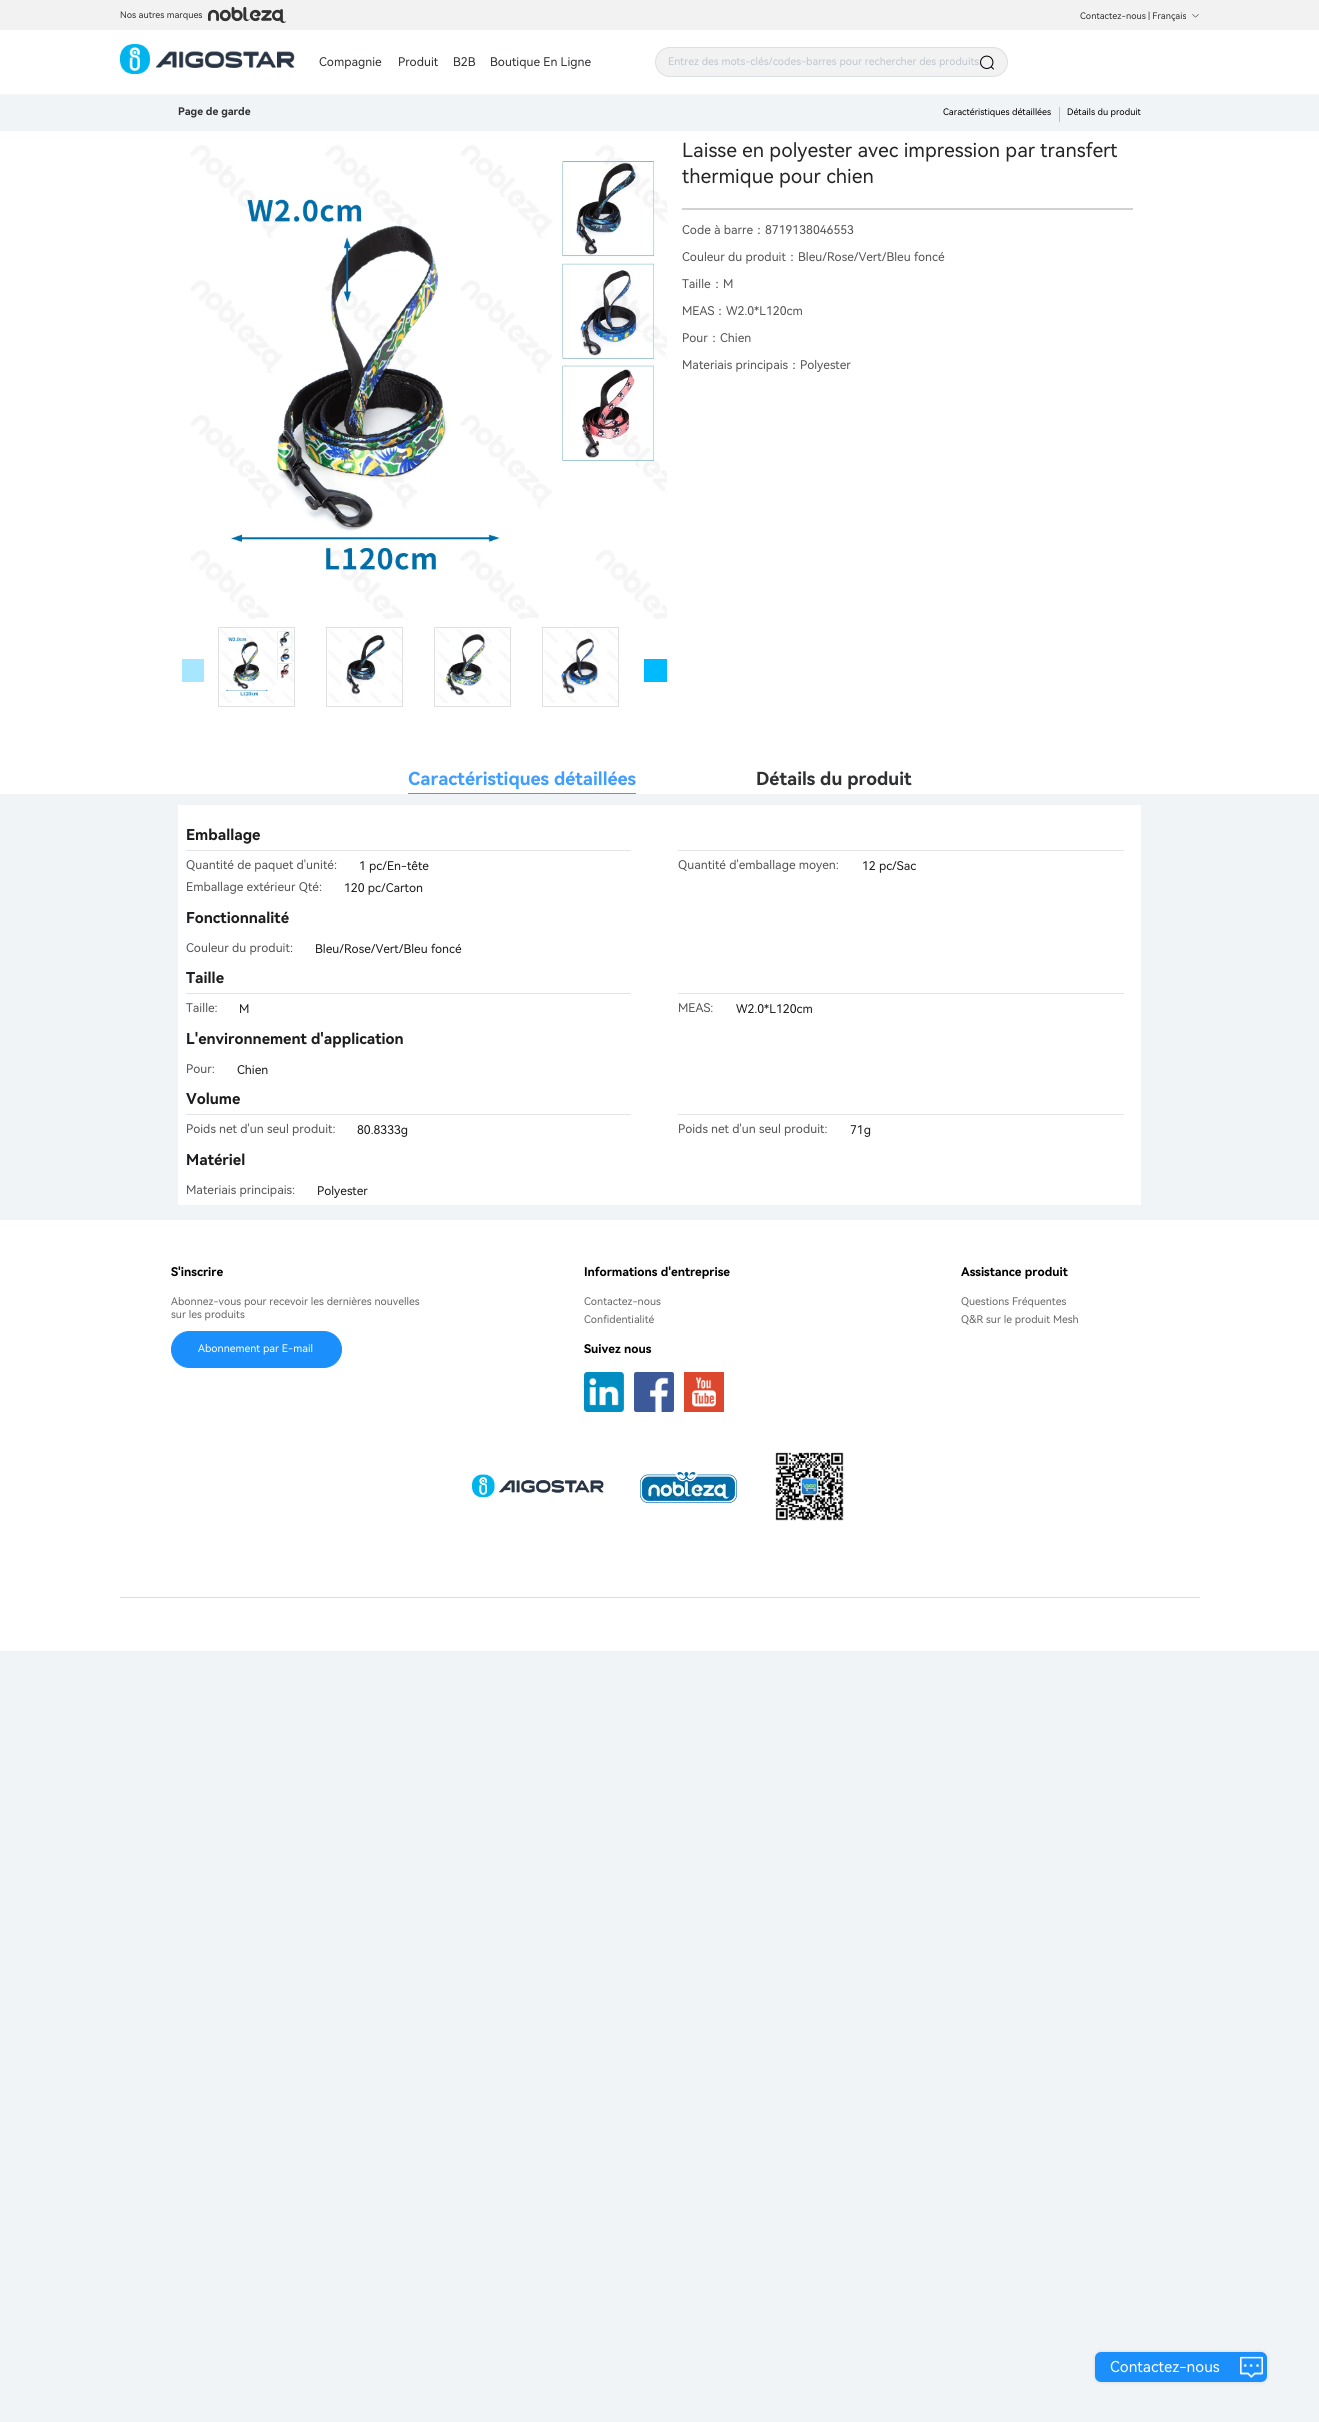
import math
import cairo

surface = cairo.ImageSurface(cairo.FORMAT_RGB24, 1319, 2422)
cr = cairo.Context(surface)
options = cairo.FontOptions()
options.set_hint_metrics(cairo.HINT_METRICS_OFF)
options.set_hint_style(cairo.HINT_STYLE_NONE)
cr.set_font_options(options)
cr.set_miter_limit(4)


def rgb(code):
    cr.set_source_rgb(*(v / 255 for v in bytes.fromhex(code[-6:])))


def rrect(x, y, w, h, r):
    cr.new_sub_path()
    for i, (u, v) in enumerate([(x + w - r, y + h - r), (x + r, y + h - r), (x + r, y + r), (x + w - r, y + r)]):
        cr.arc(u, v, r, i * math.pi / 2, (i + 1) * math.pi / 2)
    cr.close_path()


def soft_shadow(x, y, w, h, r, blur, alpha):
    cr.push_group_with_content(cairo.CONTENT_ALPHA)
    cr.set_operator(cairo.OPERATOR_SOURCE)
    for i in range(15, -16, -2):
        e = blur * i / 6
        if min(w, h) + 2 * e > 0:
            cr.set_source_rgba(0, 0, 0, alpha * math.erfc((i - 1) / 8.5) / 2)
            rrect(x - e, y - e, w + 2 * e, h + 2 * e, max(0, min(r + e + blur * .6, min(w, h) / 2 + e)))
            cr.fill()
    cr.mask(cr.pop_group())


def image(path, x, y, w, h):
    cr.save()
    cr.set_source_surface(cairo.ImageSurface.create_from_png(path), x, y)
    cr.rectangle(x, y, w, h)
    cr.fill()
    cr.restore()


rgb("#f1f4f7")
cr.paint()
rgb("#f2f2f2")
cr.rectangle(0, 0, 1319, 30)
cr.fill()
image("img/1.png", 208, 7, 79, 16)
image("img/2.png", 1192, 14, 7, 4)
rgb("#ffffff")
cr.rectangle(0, 30, 1319, 64)
cr.fill()
rgb("#f5f7f9")
cr.rectangle(0, 94, 1319, 1)
cr.fill()
image("img/3.png", 120, 44, 175, 30)
rgb("#f2f2f2")
rrect(655.5, 47.5, 352, 29, 14.5)
cr.fill_preserve()
rgb("#dcdfe6")
cr.set_line_width(1)
cr.stroke()
rgb("#bfbfbf")
cr.rectangle(1059, 107, 1, 15)
cr.fill()
rgb("#ffffff")
cr.rectangle(0, 131, 1319, 663)
cr.fill()
image("img/5.png", 190, 145, 477, 474)
rgb("#a6e7ff")
cr.rectangle(182, 659, 22, 23)
cr.fill()
cr.rectangle(218.5, 627.5, 76, 79)
rgb("#e0e0e0")
cr.stroke()
image("img/6.png", 220, 629, 74, 74)
cr.rectangle(326.5, 627.5, 76, 79)
cr.stroke()
image("img/7.png", 328, 629, 74, 74)
cr.rectangle(434.5, 627.5, 76, 79)
cr.stroke()
image("img/8.png", 436, 629, 74, 74)
cr.rectangle(542.5, 627.5, 76, 79)
cr.stroke()
image("img/9.png", 544, 629, 74, 74)
for x, y, w, h, color in [
    (644, 659, 23, 23, "#00baff"),
    (682, 208, 451, 2, "#d2d2d2"),
    (408, 793, 228, 1, "#409eff"),
    (178, 805, 963, 400, "#ffffff"),
    (186, 850, 445, 1, "#e4e4e4"),
    (678, 850, 446, 1, "#e4e4e4"),
    (186, 993, 445, 1, "#e4e4e4"),
    (678, 993, 446, 1, "#e4e4e4"),
    (186, 1114, 445, 1, "#e4e4e4"),
    (678, 1114, 446, 1, "#e4e4e4"),
    (0, 1220, 1319, 431, "#ffffff"),
]:
    rgb(color)
    cr.rectangle(x, y, w, h)
    cr.fill()
rgb("#1b90fd")
rrect(171.5, 1331.5, 170, 36, 18)
cr.fill_preserve()
cr.stroke()
image("img/10.png", 584, 1372, 40, 40)
image("img/11.png", 634, 1372, 40, 40)
image("img/12.png", 684, 1372, 40, 40)
image("img/13.png", 472, 1474, 132, 23)
image("img/14.png", 640, 1472, 97, 31)
image("img/15.png", 775, 1452, 69, 69)
rgb("#dddddd")
cr.rectangle(120, 1597, 1080, 1)
cr.fill()
rgb("#000000")
soft_shadow(1095, 2352, 172, 30, 6, 2, 0.12)
rgb("#1b90fd")
rrect(1095, 2352, 172, 30, 6)
cr.fill()
image("img/16.png", 1240, 2356, 23, 22)
cr.select_font_face("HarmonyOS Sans")
cr.set_font_size(9)
rgb("#303133")
cr.move_to(120, 18)
cr.show_text("Nos autres marques")
cr.move_to(1080, 19)
cr.show_text("Contactez-nous | Français")
cr.set_font_size(12)
for x, y, s in [
    (319, 66, "Compagnie"),
    (398, 66, "Produit"),
    (453, 66, "B2B"),
    (490, 66, "Boutique En Ligne"),
]:
    cr.move_to(x, y)
    cr.show_text(s)
cr.set_font_size(10.5)
rgb("#c0c4cc")
cr.move_to(668, 65)
cr.show_text("Entrez des mots-clés/codes-barres pour rechercher des produits.")
image("img/4.png", 980, 55, 14, 15)
cr.select_font_face("HarmonyOS Sans", cairo.FONT_SLANT_NORMAL, cairo.FONT_WEIGHT_BOLD)
rgb("#303133")
cr.move_to(178, 115)
cr.show_text("Page de garde")
cr.select_font_face("HarmonyOS Sans")
cr.set_font_size(9)
rgb("#000000")
cr.move_to(943, 115)
cr.show_text("Caractéristiques détaillées")
cr.move_to(1067, 115)
cr.show_text("Détails du produit")
cr.set_font_size(19.5)
rgb("#262626")
cr.move_to(682, 157)
cr.show_text("Laisse en polyester avec impression par transfert")
cr.move_to(682, 183)
cr.show_text("thermique pour chien")
cr.set_font_size(12)
rgb("#545454")
cr.move_to(682, 234)
cr.show_text("Code à barre")
cr.select_font_face("WenQuanYi Zen Hei Medium")
cr.move_to(753, 234)
cr.show_text("：")
cr.select_font_face("HarmonyOS Sans")
cr.move_to(765, 234)
cr.show_text("8719138046553")
cr.move_to(682, 261)
cr.show_text("Couleur du produit")
cr.select_font_face("WenQuanYi Zen Hei Medium")
cr.move_to(786, 261)
cr.show_text("：")
cr.select_font_face("HarmonyOS Sans")
cr.move_to(798, 261)
cr.show_text("Bleu/Rose/Vert/Bleu foncé")
cr.move_to(682, 288)
cr.show_text("Taille")
cr.select_font_face("WenQuanYi Zen Hei Medium")
cr.move_to(711, 288)
cr.show_text("：")
cr.select_font_face("HarmonyOS Sans")
cr.move_to(723, 288)
cr.show_text("M")
cr.move_to(682, 315)
cr.show_text("MEAS")
cr.select_font_face("WenQuanYi Zen Hei Medium")
cr.move_to(714, 315)
cr.show_text("：")
cr.select_font_face("HarmonyOS Sans")
cr.move_to(726, 315)
cr.show_text("W2.0*L120cm")
cr.move_to(682, 342)
cr.show_text("Pour")
cr.select_font_face("WenQuanYi Zen Hei Medium")
cr.move_to(708, 342)
cr.show_text("：")
cr.select_font_face("HarmonyOS Sans")
cr.move_to(720, 342)
cr.show_text("Chien")
cr.move_to(682, 369)
cr.show_text("Materiais principais")
cr.select_font_face("WenQuanYi Zen Hei Medium")
cr.move_to(788, 369)
cr.show_text("：")
cr.select_font_face("HarmonyOS Sans")
cr.move_to(800, 369)
cr.show_text("Polyester")
cr.select_font_face("HarmonyOS Sans", cairo.FONT_SLANT_NORMAL, cairo.FONT_WEIGHT_BOLD)
cr.set_font_size(18)
rgb("#409eff")
cr.move_to(408, 785)
cr.show_text("Caractéristiques détaillées")
rgb("#303133")
cr.move_to(756, 785)
cr.show_text("Détails du produit")
cr.set_font_size(15)
rgb("#1c1c1c")
cr.move_to(186, 840)
cr.show_text("Emballage")
cr.select_font_face("HarmonyOS Sans")
cr.set_font_size(12)
rgb("#545454")
cr.move_to(186, 869)
cr.show_text("Quantité de paquet d'unité:")
rgb("#1c1c1c")
cr.move_to(359, 870)
cr.show_text("1 pc/En-tête")
rgb("#545454")
cr.move_to(678, 869)
cr.show_text("Quantité d'emballage moyen:")
rgb("#1c1c1c")
cr.move_to(862, 870)
cr.show_text("12 pc/Sac")
rgb("#545454")
cr.move_to(186, 891)
cr.show_text("Emballage extérieur Qté:")
rgb("#1c1c1c")
cr.move_to(344, 892)
cr.show_text("120 pc/Carton")
cr.select_font_face("HarmonyOS Sans", cairo.FONT_SLANT_NORMAL, cairo.FONT_WEIGHT_BOLD)
cr.set_font_size(15)
cr.move_to(186, 923)
cr.show_text("Fonctionnalité")
cr.select_font_face("HarmonyOS Sans")
cr.set_font_size(12)
rgb("#545454")
cr.move_to(186, 952)
cr.show_text("Couleur du produit:")
rgb("#1c1c1c")
cr.move_to(315, 953)
cr.show_text("Bleu/Rose/Vert/Bleu foncé")
cr.select_font_face("HarmonyOS Sans", cairo.FONT_SLANT_NORMAL, cairo.FONT_WEIGHT_BOLD)
cr.set_font_size(15)
cr.move_to(186, 983)
cr.show_text("Taille")
cr.select_font_face("HarmonyOS Sans")
cr.set_font_size(12)
rgb("#545454")
cr.move_to(186, 1012)
cr.show_text("Taille:")
rgb("#1c1c1c")
cr.move_to(239, 1013)
cr.show_text("M")
rgb("#545454")
cr.move_to(678, 1012)
cr.show_text("MEAS:")
rgb("#1c1c1c")
cr.move_to(736, 1013)
cr.show_text("W2.0*L120cm")
cr.select_font_face("HarmonyOS Sans", cairo.FONT_SLANT_NORMAL, cairo.FONT_WEIGHT_BOLD)
cr.set_font_size(15)
cr.move_to(186, 1044)
cr.show_text("L'environnement d'application")
cr.select_font_face("HarmonyOS Sans")
cr.set_font_size(12)
rgb("#545454")
cr.move_to(186, 1073)
cr.show_text("Pour:")
rgb("#1c1c1c")
cr.move_to(237, 1074)
cr.show_text("Chien")
cr.select_font_face("HarmonyOS Sans", cairo.FONT_SLANT_NORMAL, cairo.FONT_WEIGHT_BOLD)
cr.set_font_size(15)
cr.move_to(186, 1104)
cr.show_text("Volume")
cr.select_font_face("HarmonyOS Sans")
cr.set_font_size(12)
rgb("#545454")
cr.move_to(186, 1133)
cr.show_text("Poids net d'un seul produit:")
rgb("#1c1c1c")
cr.move_to(357, 1134)
cr.show_text("80.8333g")
rgb("#545454")
cr.move_to(678, 1133)
cr.show_text("Poids net d'un seul produit:")
rgb("#1c1c1c")
cr.move_to(850, 1134)
cr.show_text("71g")
cr.select_font_face("HarmonyOS Sans", cairo.FONT_SLANT_NORMAL, cairo.FONT_WEIGHT_BOLD)
cr.set_font_size(15)
cr.move_to(186, 1165)
cr.show_text("Matériel")
cr.select_font_face("HarmonyOS Sans")
cr.set_font_size(12)
rgb("#545454")
cr.move_to(186, 1194)
cr.show_text("Materiais principais:")
rgb("#1c1c1c")
cr.move_to(317, 1195)
cr.show_text("Polyester")
cr.select_font_face("HarmonyOS Sans", cairo.FONT_SLANT_NORMAL, cairo.FONT_WEIGHT_BOLD)
rgb("#000000")
cr.move_to(171, 1276)
cr.show_text("S'inscrire")
cr.select_font_face("HarmonyOS Sans")
cr.set_font_size(10.5)
rgb("#666666")
cr.move_to(171, 1305)
cr.show_text("Abonnez-vous pour recevoir les dernières nouvelles")
cr.move_to(171, 1318)
cr.show_text("sur les produits")
rgb("#ffffff")
cr.move_to(198, 1352)
cr.show_text("Abonnement par E-mail")
cr.select_font_face("HarmonyOS Sans", cairo.FONT_SLANT_NORMAL, cairo.FONT_WEIGHT_BOLD)
cr.set_font_size(12)
rgb("#000000")
cr.move_to(584, 1276)
cr.show_text("Informations d'entreprise")
cr.select_font_face("HarmonyOS Sans")
cr.set_font_size(10.5)
rgb("#666666")
cr.move_to(584, 1305)
cr.show_text("Contactez-nous")
cr.move_to(584, 1323)
cr.show_text("Confidentialité")
cr.select_font_face("HarmonyOS Sans", cairo.FONT_SLANT_NORMAL, cairo.FONT_WEIGHT_BOLD)
cr.set_font_size(12)
rgb("#000000")
cr.move_to(584, 1353)
cr.show_text("Suivez nous")
cr.move_to(961, 1276)
cr.show_text("Assistance produit")
cr.select_font_face("HarmonyOS Sans")
cr.set_font_size(10.5)
rgb("#666666")
cr.move_to(961, 1305)
cr.show_text("Questions Fréquentes")
cr.move_to(961, 1323)
cr.show_text("Q&R sur le produit Mesh")
cr.set_font_size(15)
rgb("#ffffff")
cr.move_to(1110, 2372)
cr.show_text("Contactez-nous")
surface.write_to_png("page.png")
